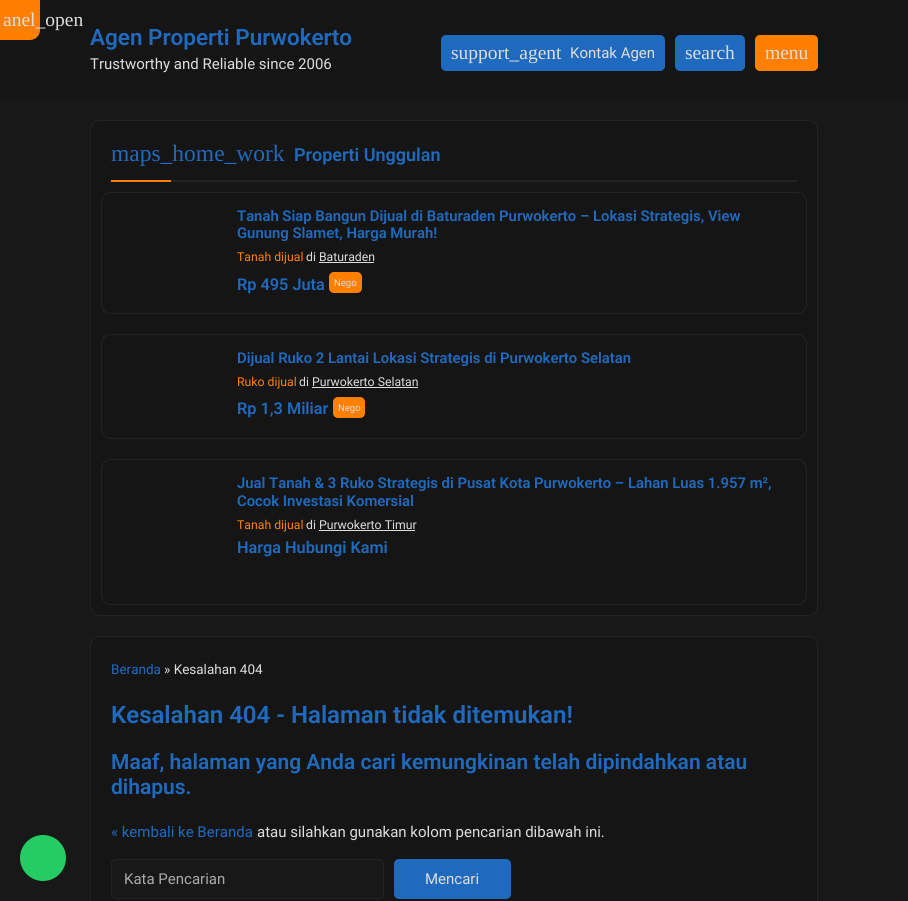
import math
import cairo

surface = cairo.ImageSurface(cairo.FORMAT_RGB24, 908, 901)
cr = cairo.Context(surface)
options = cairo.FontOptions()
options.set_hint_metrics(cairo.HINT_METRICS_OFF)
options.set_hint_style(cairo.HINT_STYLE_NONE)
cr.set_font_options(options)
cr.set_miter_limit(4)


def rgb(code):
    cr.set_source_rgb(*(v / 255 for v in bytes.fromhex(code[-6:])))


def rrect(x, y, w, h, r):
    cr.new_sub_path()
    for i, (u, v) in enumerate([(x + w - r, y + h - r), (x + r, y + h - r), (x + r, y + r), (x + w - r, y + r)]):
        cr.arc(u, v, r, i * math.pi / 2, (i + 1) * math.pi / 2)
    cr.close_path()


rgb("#151515")
cr.paint()
rgb("#ff8000")
cr.new_path()
cr.move_to(0, 0)
cr.line_to(40, 0)
cr.line_to(40, 30)
cr.curve_to(40, 35.5, 35.5, 40, 30, 40)
cr.line_to(0, 40)
cr.close_path()
cr.fill()
rgb("#181818")
cr.rectangle(0, 100, 908, 801)
cr.fill()
rgb("#151515")
rrect(90.5, 636.5, 727, 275, 9.5)
cr.fill_preserve()
rgb("#222222")
cr.set_line_width(1)
cr.stroke()
rgb("#181818")
rrect(111.5, 859.5, 272, 39, 4.5)
cr.fill_preserve()
rgb("#222222")
cr.stroke()
rgb("#1f6abe")
rrect(394, 859, 117, 40, 5)
cr.fill()
rrect(441, 35, 224, 36, 5)
cr.fill()
rrect(675, 35, 70, 36, 5)
cr.fill()
rgb("#ff8000")
rrect(755, 35, 63, 36, 5)
cr.fill()
rgb("#151515")
rrect(90.5, 120.5, 727, 495, 9.5)
cr.fill_preserve()
rgb("#222222")
cr.stroke()
cr.rectangle(171, 180, 626, 2)
cr.fill()
rgb("#ff8000")
cr.rectangle(111, 180, 60, 2)
cr.fill()
rrect(101.5, 192.5, 705, 121, 9.5)
rgb("#222222")
cr.stroke()
rgb("#dddddd")
cr.rectangle(319, 262, 55, 1)
cr.fill()
rgb("#ff8000")
rrect(329, 272, 33, 21, 5)
cr.fill()
rrect(101.5, 334.5, 705, 104, 9.5)
rgb("#222222")
cr.stroke()
rgb("#dddddd")
cr.rectangle(312, 387, 106, 1)
cr.fill()
rgb("#ff8000")
rrect(333, 397, 32, 21, 5)
cr.fill()
rrect(101.5, 459.5, 705, 145, 9.5)
rgb("#222222")
cr.stroke()
rgb("#dddddd")
cr.rectangle(319, 530, 96, 1)
cr.fill()
rgb("#24cc63")
cr.arc(43, 858, 23, 0, 2 * math.pi)
cr.fill()
cr.select_font_face("Liberation Serif")
cr.set_font_size(19.5)
rgb("#dddddd")
cr.move_to(3, 26)
cr.show_text("anel_open")
cr.select_font_face("Roboto")
cr.set_font_size(13.5)
rgb("#1f6abe")
cr.move_to(111, 674)
cr.show_text("Beranda")
rgb("#dddddd")
cr.move_to(164, 674)
cr.show_text("» Kesalahan 404")
cr.select_font_face("Roboto SemiBold")
cr.set_font_size(24)
rgb("#1f6abe")
cr.move_to(111, 723)
cr.show_text("Kesalahan 404 - Halaman tidak ditemukan!")
cr.set_font_size(21)
cr.move_to(111, 769)
cr.show_text("Maaf, halaman yang Anda cari kemungkinan telah dipindahkan atau")
cr.move_to(111, 794)
cr.show_text("dihapus.")
cr.select_font_face("Roboto")
cr.set_font_size(15)
cr.move_to(111, 837)
cr.show_text("« kembali ke Beranda")
rgb("#dddddd")
cr.move_to(257, 837)
cr.show_text("atau silahkan gunakan kolom pencarian dibawah ini.")
rgb("#aaaaaa")
cr.move_to(124, 884)
cr.show_text("Kata Pencarian")
rgb("#dddddd")
cr.move_to(425, 884)
cr.show_text("Mencari")
cr.select_font_face("Roboto SemiBold")
cr.set_font_size(22.5)
rgb("#1f6abe")
cr.move_to(90, 45)
cr.show_text("Agen Properti Purwokerto")
cr.select_font_face("Roboto")
cr.set_font_size(15)
rgb("#dddddd")
cr.move_to(90, 69)
cr.show_text("Trustworthy and Reliable since 2006")
cr.select_font_face("Liberation Serif")
cr.set_font_size(19.5)
cr.move_to(451, 59)
cr.show_text("support_agent")
cr.select_font_face("Roboto")
cr.set_font_size(15)
cr.move_to(570, 58)
cr.show_text("Kontak Agen")
cr.select_font_face("Liberation Serif")
cr.set_font_size(19.5)
cr.move_to(685, 59)
cr.show_text("search")
cr.move_to(765, 59)
cr.show_text("menu")
cr.set_font_size(23.5)
rgb("#1f6abe")
cr.move_to(111, 161)
cr.show_text("maps_home_work")
cr.select_font_face("Roboto SemiBold")
cr.set_font_size(18)
cr.move_to(294, 161)
cr.show_text("Properti Unggulan")
cr.set_font_size(14.85)
cr.move_to(237, 221)
cr.show_text("Tanah Siap Bangun Dijual di Baturaden Purwokerto – Lokasi Strategis, View")
cr.move_to(237, 238)
cr.show_text("Gunung Slamet, Harga Murah!")
cr.select_font_face("Roboto")
cr.set_font_size(12.25)
rgb("#ff8000")
cr.move_to(237, 261)
cr.show_text("Tanah dijual")
rgb("#dddddd")
cr.move_to(306, 261)
cr.show_text("di Baturaden")
cr.select_font_face("Roboto SemiBold")
cr.set_font_size(16.25)
rgb("#1f6abe")
cr.move_to(237, 290)
cr.show_text("Rp 495 Juta")
cr.select_font_face("Roboto")
cr.set_font_size(9.5)
rgb("#dddddd")
cr.move_to(334, 286)
cr.show_text("Nego")
cr.select_font_face("Roboto SemiBold")
cr.set_font_size(14.85)
rgb("#1f6abe")
cr.move_to(237, 363)
cr.show_text("Dijual Ruko 2 Lantai Lokasi Strategis di Purwokerto Selatan")
cr.select_font_face("Roboto")
cr.set_font_size(12.25)
rgb("#ff8000")
cr.move_to(237, 386)
cr.show_text("Ruko dijual")
rgb("#dddddd")
cr.move_to(299, 386)
cr.show_text("di Purwokerto Selatan")
cr.select_font_face("Roboto SemiBold")
cr.set_font_size(16.25)
rgb("#1f6abe")
cr.move_to(237, 414)
cr.show_text("Rp 1,3 Miliar")
cr.select_font_face("Roboto")
cr.set_font_size(9.5)
rgb("#dddddd")
cr.move_to(338, 411)
cr.show_text("Nego")
cr.select_font_face("Roboto SemiBold")
cr.set_font_size(14.85)
rgb("#1f6abe")
cr.move_to(237, 488)
cr.show_text("Jual Tanah & 3 Ruko Strategis di Pusat Kota Purwokerto – Lahan Luas 1.957 m²,")
cr.move_to(237, 506)
cr.show_text("Cocok Investasi Komersial")
cr.select_font_face("Roboto")
cr.set_font_size(12.25)
rgb("#ff8000")
cr.move_to(237, 529)
cr.show_text("Tanah dijual")
rgb("#dddddd")
cr.move_to(306, 529)
cr.show_text("di Purwokerto Timur")
cr.select_font_face("Roboto SemiBold")
cr.set_font_size(16.25)
rgb("#1f6abe")
cr.move_to(237, 553)
cr.show_text("Harga Hubungi Kami")
surface.write_to_png("page.png")
